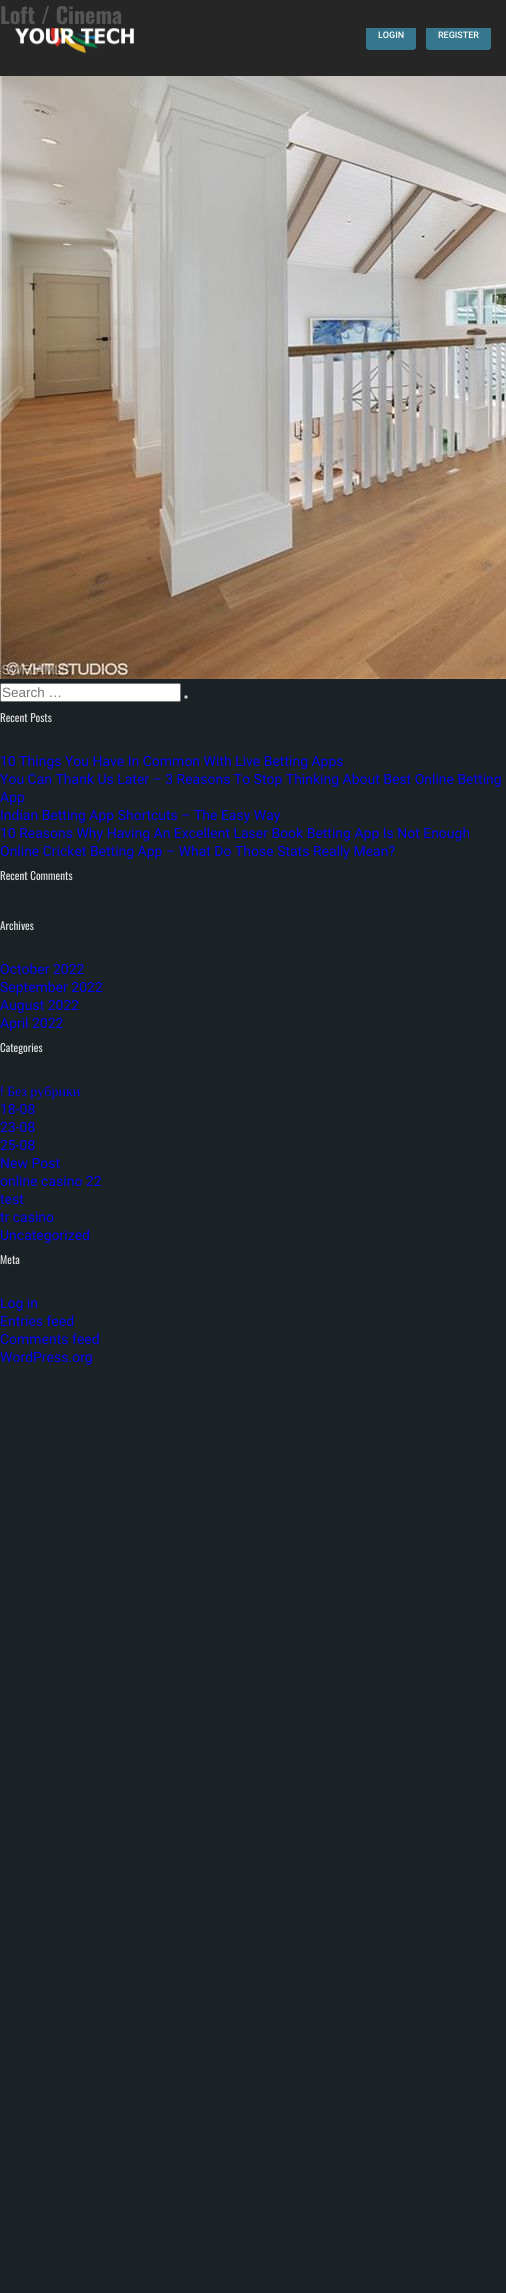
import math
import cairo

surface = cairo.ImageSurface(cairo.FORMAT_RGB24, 506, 2293)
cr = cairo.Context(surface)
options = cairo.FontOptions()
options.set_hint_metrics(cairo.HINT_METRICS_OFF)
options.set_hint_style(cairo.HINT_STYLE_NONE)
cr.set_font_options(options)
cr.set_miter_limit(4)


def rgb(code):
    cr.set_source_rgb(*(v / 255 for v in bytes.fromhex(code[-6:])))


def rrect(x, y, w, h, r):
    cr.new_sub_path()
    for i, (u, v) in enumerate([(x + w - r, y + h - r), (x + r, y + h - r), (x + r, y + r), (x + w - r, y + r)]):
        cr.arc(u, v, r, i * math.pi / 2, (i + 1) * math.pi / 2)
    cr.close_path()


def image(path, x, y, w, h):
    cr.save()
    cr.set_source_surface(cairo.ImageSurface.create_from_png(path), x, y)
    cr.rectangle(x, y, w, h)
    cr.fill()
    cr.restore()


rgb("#1a2225")
cr.paint()
rgb("#262626")
cr.rectangle(0, 28, 506, 48)
cr.fill()
rgb("#36778d")
rrect(366, 20, 50, 30, 3)
cr.fill()
rrect(426, 20, 65, 30, 3)
cr.fill()
rgb("#262626")
cr.rectangle(0, 0, 506, 28)
cr.fill()
image("img/1.png", 0, 76, 506, 603)
image("img/2.png", 15, 28, 119, 26)
rgb("#ffffff")
rrect(0.5, 683.5, 180, 18, 1.5)
cr.fill_preserve()
rgb("#767676")
cr.set_line_width(1)
cr.stroke()
rgb("#efefef")
cr.arc(186, 697, 1.5, 0, 2 * math.pi)
cr.fill_preserve()
rgb("#767676")
cr.stroke()
cr.select_font_face("Oswald", cairo.FONT_SLANT_NORMAL, cairo.FONT_WEIGHT_BOLD)
cr.set_font_size(22)
rgb("#555555")
cr.move_to(0, 24)
cr.show_text("Loft / Cinema")
cr.select_font_face("Roboto Medium")
cr.set_font_size(9)
rgb("#ffffff")
cr.move_to(378, 38)
cr.show_text("LOGIN")
cr.move_to(438, 38)
cr.show_text("REGISTER")
cr.select_font_face("Liberation Sans")
cr.set_font_size(13.5)
rgb("#757575")
cr.move_to(2, 697)
cr.show_text("Search …")
cr.select_font_face("Oswald")
cr.set_font_size(11)
rgb("#e2e1e1")
cr.move_to(0, 722)
cr.show_text("Recent Posts")
cr.select_font_face("Roboto")
cr.set_font_size(14)
rgb("#0000ee")
for x, y, s in [
    (0, 766, "10 Things You Have In Common With Live Betting Apps"),
    (0, 784, "You Can Thank Us Later – 3 Reasons To Stop Thinking About Best Online Betting"),
    (0, 802, "App"),
    (0, 820, "Indian Betting App Shortcuts – The Easy Way"),
    (0, 838, "10 Reasons Why Having An Excellent Laser Book Betting App Is Not Enough"),
    (0, 856, "Online Cricket Betting App – What Do Those Stats Really Mean?"),
]:
    cr.move_to(x, y)
    cr.show_text(s)
cr.select_font_face("Oswald")
cr.set_font_size(11)
rgb("#e2e1e1")
cr.move_to(0, 880)
cr.show_text("Recent Comments")
cr.move_to(0, 930)
cr.show_text("Archives")
cr.select_font_face("Roboto")
cr.set_font_size(14)
rgb("#0000ee")
for x, y, s in [
    (0, 974, "October 2022"),
    (0, 992, "September 2022"),
    (0, 1010, "August 2022"),
    (0, 1028, "April 2022"),
]:
    cr.move_to(x, y)
    cr.show_text(s)
cr.select_font_face("Oswald")
cr.set_font_size(11)
rgb("#e2e1e1")
cr.move_to(0, 1052)
cr.show_text("Categories")
cr.select_font_face("Roboto")
cr.set_font_size(14)
rgb("#0000ee")
cr.move_to(0, 1096)
cr.show_text("!")
cr.select_font_face("Liberation Serif")
cr.move_to(7, 1096)
cr.show_text("Без рубрики")
cr.select_font_face("Roboto")
for x, y, s in [
    (0, 1114, "18-08"),
    (0, 1132, "23-08"),
    (0, 1150, "25-08"),
    (0, 1168, "New Post"),
    (0, 1186, "online casino 22"),
    (0, 1204, "test"),
    (0, 1222, "tr casino"),
    (0, 1240, "Uncategorized"),
]:
    cr.move_to(x, y)
    cr.show_text(s)
cr.select_font_face("Oswald")
cr.set_font_size(11)
rgb("#e2e1e1")
cr.move_to(0, 1264)
cr.show_text("Meta")
cr.select_font_face("Roboto")
cr.set_font_size(14)
rgb("#0000ee")
for x, y, s in [
    (0, 1308, "Log in"),
    (0, 1326, "Entries feed"),
    (0, 1344, "Comments feed"),
    (0, 1362, "WordPress.org"),
]:
    cr.move_to(x, y)
    cr.show_text(s)
surface.write_to_png("page.png")
